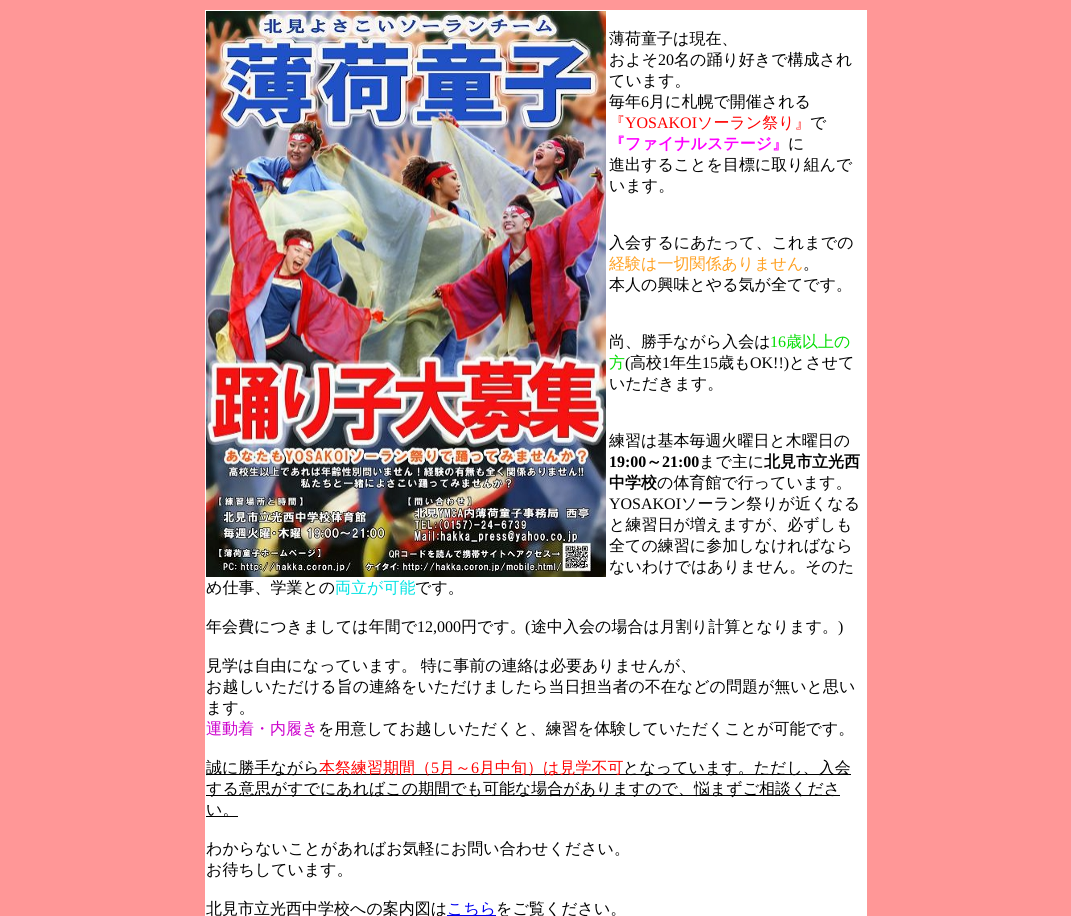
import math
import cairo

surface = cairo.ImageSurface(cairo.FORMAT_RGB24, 1071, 916)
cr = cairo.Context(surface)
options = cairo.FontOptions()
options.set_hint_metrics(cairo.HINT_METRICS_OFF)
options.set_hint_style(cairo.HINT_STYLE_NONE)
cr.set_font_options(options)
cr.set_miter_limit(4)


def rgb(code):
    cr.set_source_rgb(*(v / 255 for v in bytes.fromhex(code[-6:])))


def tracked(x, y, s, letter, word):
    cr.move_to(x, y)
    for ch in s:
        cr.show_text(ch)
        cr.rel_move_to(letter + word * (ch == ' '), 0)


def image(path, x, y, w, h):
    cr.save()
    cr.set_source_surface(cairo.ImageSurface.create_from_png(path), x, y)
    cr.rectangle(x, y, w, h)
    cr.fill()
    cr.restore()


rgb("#ff9797")
cr.paint()
rgb("#ffffff")
cr.rectangle(205, 10, 662, 906)
cr.fill()
image("img/1.png", 206, 11, 400, 566)
for x, y, w, h, color in [
    (206, 774, 645, 1, "#000000"),
    (206, 795, 634, 1, "#000000"),
    (206, 816, 32, 1, "#000000"),
    (447, 915, 49, 1, "#0000ee"),
]:
    rgb(color)
    cr.rectangle(x, y, w, h)
    cr.fill()
cr.select_font_face("WenQuanYi Zen Hei Medium")
cr.set_font_size(16)
rgb("#000000")
cr.move_to(609, 44)
cr.show_text("薄荷童子は現在、")
cr.move_to(609, 65)
cr.show_text("およそ")
cr.select_font_face("Liberation Serif")
cr.move_to(658, 65)
cr.show_text("20")
cr.select_font_face("WenQuanYi Zen Hei Medium")
for x, y, s in [
    (674, 65, "名の踊り好きで構成され"),
    (609, 86, "ています。"),
    (609, 107, "毎年"),
]:
    cr.move_to(x, y)
    cr.show_text(s)
cr.select_font_face("Liberation Serif")
cr.move_to(641, 107)
cr.show_text("6")
cr.select_font_face("WenQuanYi Zen Hei Medium")
cr.move_to(649, 107)
cr.show_text("月に札幌で開催される")
rgb("#ff0000")
cr.move_to(609, 128)
cr.show_text("『")
cr.select_font_face("Liberation Serif")
cr.move_to(625, 128)
cr.show_text("YOSAKOI")
cr.select_font_face("WenQuanYi Zen Hei Medium")
cr.move_to(697, 128)
cr.show_text("ソーラン祭り』")
rgb("#000000")
cr.move_to(810, 128)
cr.show_text("で")
cr.select_font_face("WenQuanYi Zen Hei", cairo.FONT_SLANT_NORMAL, cairo.FONT_WEIGHT_BOLD)
rgb("#ff00ff")
cr.move_to(609, 149)
cr.show_text("『ファイナルステージ』")
cr.select_font_face("WenQuanYi Zen Hei Medium")
rgb("#000000")
for x, y, s in [
    (788, 149, "に"),
    (609, 170, "進出することを目標に取り組んで"),
    (609, 191, "います。"),
    (609, 248, "入会するにあたって、これまでの"),
]:
    cr.move_to(x, y)
    cr.show_text(s)
rgb("#ffa020")
cr.move_to(609, 269)
cr.show_text("経験は一切関係ありません")
rgb("#000000")
for x, y, s in [
    (803, 269, "。"),
    (609, 290, "本人の興味とやる気が全てです。"),
    (609, 347, "尚、勝手ながら入会は"),
]:
    cr.move_to(x, y)
    cr.show_text(s)
cr.select_font_face("Liberation Serif")
rgb("#00dd00")
cr.move_to(770, 347)
cr.show_text("16")
cr.select_font_face("WenQuanYi Zen Hei Medium")
cr.move_to(786, 347)
cr.show_text("歳以上の")
cr.move_to(609, 368)
cr.show_text("方")
cr.select_font_face("Liberation Serif")
rgb("#000000")
cr.move_to(625, 368)
cr.show_text("(")
cr.select_font_face("WenQuanYi Zen Hei Medium")
cr.move_to(630, 368)
cr.show_text("高校")
cr.select_font_face("Liberation Serif")
cr.move_to(662, 368)
cr.show_text("1")
cr.select_font_face("WenQuanYi Zen Hei Medium")
cr.move_to(670, 368)
cr.show_text("年生")
cr.select_font_face("Liberation Serif")
cr.move_to(702, 368)
cr.show_text("15")
cr.select_font_face("WenQuanYi Zen Hei Medium")
cr.move_to(718, 368)
cr.show_text("歳も")
cr.select_font_face("Liberation Serif")
cr.move_to(750, 368)
cr.show_text("OK!!)")
cr.select_font_face("WenQuanYi Zen Hei Medium")
for x, y, s in [
    (789, 368, "とさせて"),
    (609, 389, "いただきます。"),
    (609, 446, "練習は基本毎週火曜日と木曜日の"),
]:
    cr.move_to(x, y)
    cr.show_text(s)
cr.select_font_face("Liberation Serif", cairo.FONT_SLANT_NORMAL, cairo.FONT_WEIGHT_BOLD)
cr.move_to(609, 467)
cr.show_text("19:00")
cr.select_font_face("WenQuanYi Zen Hei", cairo.FONT_SLANT_NORMAL, cairo.FONT_WEIGHT_BOLD)
cr.move_to(646, 467)
cr.show_text("～")
cr.select_font_face("Liberation Serif", cairo.FONT_SLANT_NORMAL, cairo.FONT_WEIGHT_BOLD)
cr.move_to(662, 467)
cr.show_text("21:00")
cr.select_font_face("WenQuanYi Zen Hei Medium")
cr.move_to(699, 467)
cr.show_text("まで主に")
cr.select_font_face("WenQuanYi Zen Hei", cairo.FONT_SLANT_NORMAL, cairo.FONT_WEIGHT_BOLD)
cr.move_to(764, 467)
cr.show_text("北見市立光西")
cr.move_to(609, 488)
cr.show_text("中学校")
cr.select_font_face("WenQuanYi Zen Hei Medium")
cr.move_to(657, 488)
cr.show_text("の体育館で行っています。")
cr.select_font_face("Liberation Serif")
cr.move_to(609, 509)
cr.show_text("YOSAKOI")
cr.select_font_face("WenQuanYi Zen Hei Medium")
for x, y, s in [
    (681, 509, "ソーラン祭りが近くなる"),
    (609, 530, "と練習日が増えますが、必ずしも"),
    (609, 551, "全ての練習に参加しなければなら"),
    (609, 572, "ないわけではありません。そのた"),
    (206, 593, "め仕事、学業との"),
]:
    cr.move_to(x, y)
    cr.show_text(s)
rgb("#00e3e3")
cr.move_to(335, 593)
cr.show_text("両立が可能")
rgb("#000000")
cr.move_to(415, 593)
cr.show_text("です。")
cr.move_to(206, 632)
cr.show_text("年会費につきましては年間で")
cr.select_font_face("Liberation Serif")
cr.move_to(417, 632)
cr.show_text("12,000")
cr.select_font_face("WenQuanYi Zen Hei Medium")
cr.move_to(461, 632)
cr.show_text("円です。")
cr.select_font_face("Liberation Serif")
cr.move_to(525, 632)
cr.show_text("(")
cr.select_font_face("WenQuanYi Zen Hei Medium")
cr.move_to(531, 632)
cr.show_text("途中入会の場合は月割り計算となります。")
cr.select_font_face("Liberation Serif")
cr.move_to(838, 632)
cr.show_text(")")
cr.select_font_face("WenQuanYi Zen Hei Medium")
tracked(206, 671, "見学は自由になっています。 特に事前の連絡は必要ありませんが、", 0, -1)
cr.move_to(206, 692)
cr.show_text("お越しいただける旨の連絡をいただけましたら当日担当者の不在などの問題が無いと思い")
cr.move_to(206, 713)
cr.show_text("ます。")
rgb("#cc00cc")
cr.move_to(206, 734)
cr.show_text("運動着・内履き")
rgb("#000000")
cr.move_to(318, 734)
cr.show_text("を用意してお越しいただくと、練習を体験していただくことが可能です。")
cr.move_to(206, 773)
cr.show_text("誠に勝手ながら")
rgb("#ff0000")
cr.move_to(319, 773)
cr.show_text("本祭練習期間（")
cr.select_font_face("Liberation Serif")
cr.move_to(431, 773)
cr.show_text("5")
cr.select_font_face("WenQuanYi Zen Hei Medium")
cr.move_to(439, 773)
cr.show_text("月～")
cr.select_font_face("Liberation Serif")
cr.move_to(471, 773)
cr.show_text("6")
cr.select_font_face("WenQuanYi Zen Hei Medium")
cr.move_to(479, 773)
cr.show_text("月中旬）は見学不可")
rgb("#000000")
for x, y, s in [
    (623, 773, "となっています。ただし、入会"),
    (206, 794, "する意思がすでにあればこの期間でも可能な場合がありますので、悩まずご相談くださ"),
    (206, 815, "い。"),
    (206, 854, "わからないことがあればお気軽にお問い合わせください。"),
    (206, 875, "お待ちしています。"),
    (206, 914, "北見市立光西中学校への案内図は"),
]:
    cr.move_to(x, y)
    cr.show_text(s)
rgb("#0000ee")
cr.move_to(447, 914)
cr.show_text("こちら")
rgb("#000000")
cr.move_to(496, 914)
cr.show_text("をご覧ください。")
surface.write_to_png("page.png")
